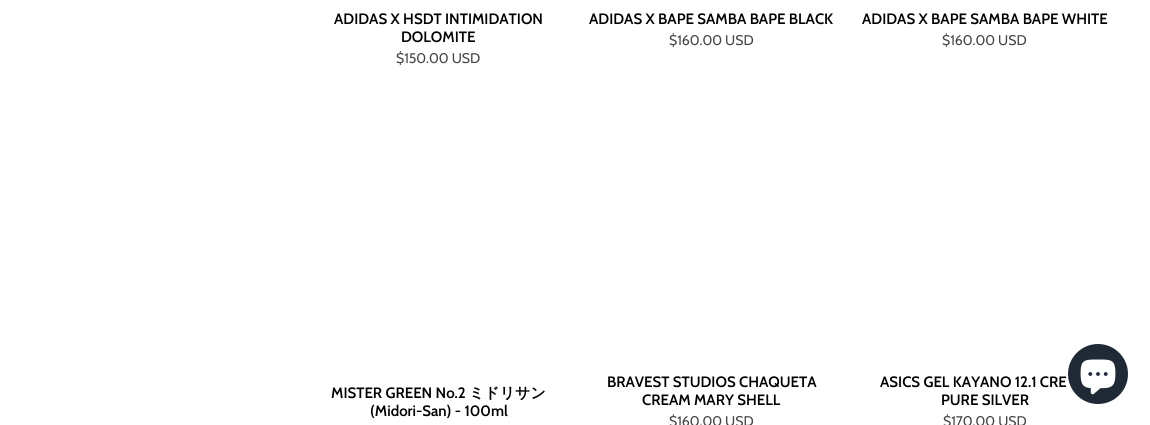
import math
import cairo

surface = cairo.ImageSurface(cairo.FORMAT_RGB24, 1150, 425)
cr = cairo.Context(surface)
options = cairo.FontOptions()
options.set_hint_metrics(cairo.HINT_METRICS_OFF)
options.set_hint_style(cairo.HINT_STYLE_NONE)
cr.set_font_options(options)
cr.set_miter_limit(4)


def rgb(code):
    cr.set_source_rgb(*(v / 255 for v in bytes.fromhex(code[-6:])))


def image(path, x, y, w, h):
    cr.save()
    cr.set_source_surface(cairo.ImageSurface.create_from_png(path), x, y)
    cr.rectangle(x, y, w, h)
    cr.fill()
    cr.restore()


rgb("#ffffff")
cr.paint()
rgb("#202a36")
cr.arc(1098, 374, 30, 0, 2 * math.pi)
cr.fill()
image("img/1.png", 1080, 359, 36, 36)
cr.select_font_face("Cabin SemiBold")
cr.set_font_size(15)
rgb("#000000")
cr.move_to(334, 24)
cr.show_text("ADIDAS X HSDT INTIMIDATION")
cr.move_to(401, 42)
cr.show_text("DOLOMITE")
cr.select_font_face("Cabin")
cr.set_font_size(14)
rgb("#444444")
cr.move_to(396, 63)
cr.show_text("$150.00 USD")
cr.select_font_face("Cabin SemiBold")
cr.set_font_size(15)
rgb("#000000")
cr.move_to(589, 24)
cr.show_text("ADIDAS X BAPE SAMBA BAPE BLACK")
cr.select_font_face("Cabin")
cr.set_font_size(14)
rgb("#444444")
cr.move_to(669, 45)
cr.show_text("$160.00 USD")
cr.select_font_face("Cabin SemiBold")
cr.set_font_size(15)
rgb("#000000")
cr.move_to(862, 24)
cr.show_text("ADIDAS X BAPE SAMBA BAPE WHITE")
cr.select_font_face("Cabin")
cr.set_font_size(14)
rgb("#444444")
cr.move_to(942, 45)
cr.show_text("$160.00 USD")
cr.select_font_face("Cabin SemiBold")
cr.set_font_size(15)
rgb("#000000")
cr.move_to(331, 398)
cr.show_text("MISTER GREEN No.2")
cr.select_font_face("WenQuanYi Zen Hei", cairo.FONT_SLANT_NORMAL, cairo.FONT_WEIGHT_BOLD)
cr.move_to(469, 398)
cr.show_text("ミドリサン")
cr.select_font_face("Cabin SemiBold")
for x, y, s in [
    (370, 416, "(Midori-San) - 100ml"),
    (607, 387, "BRAVEST STUDIOS CHAQUETA"),
    (642, 405, "CREAM MARY SHELL"),
]:
    cr.move_to(x, y)
    cr.show_text(s)
cr.select_font_face("Cabin")
cr.set_font_size(14)
rgb("#444444")
cr.move_to(669, 426)
cr.show_text("$160.00 USD")
cr.select_font_face("Cabin SemiBold")
cr.set_font_size(15)
rgb("#000000")
cr.move_to(880, 387)
cr.show_text("ASICS GEL KAYANO 12.1 CRE")
cr.move_to(941, 405)
cr.show_text("PURE SILVER")
cr.select_font_face("Cabin")
cr.set_font_size(14)
rgb("#444444")
cr.move_to(943, 426)
cr.show_text("$170.00 USD")
surface.write_to_png("page.png")
